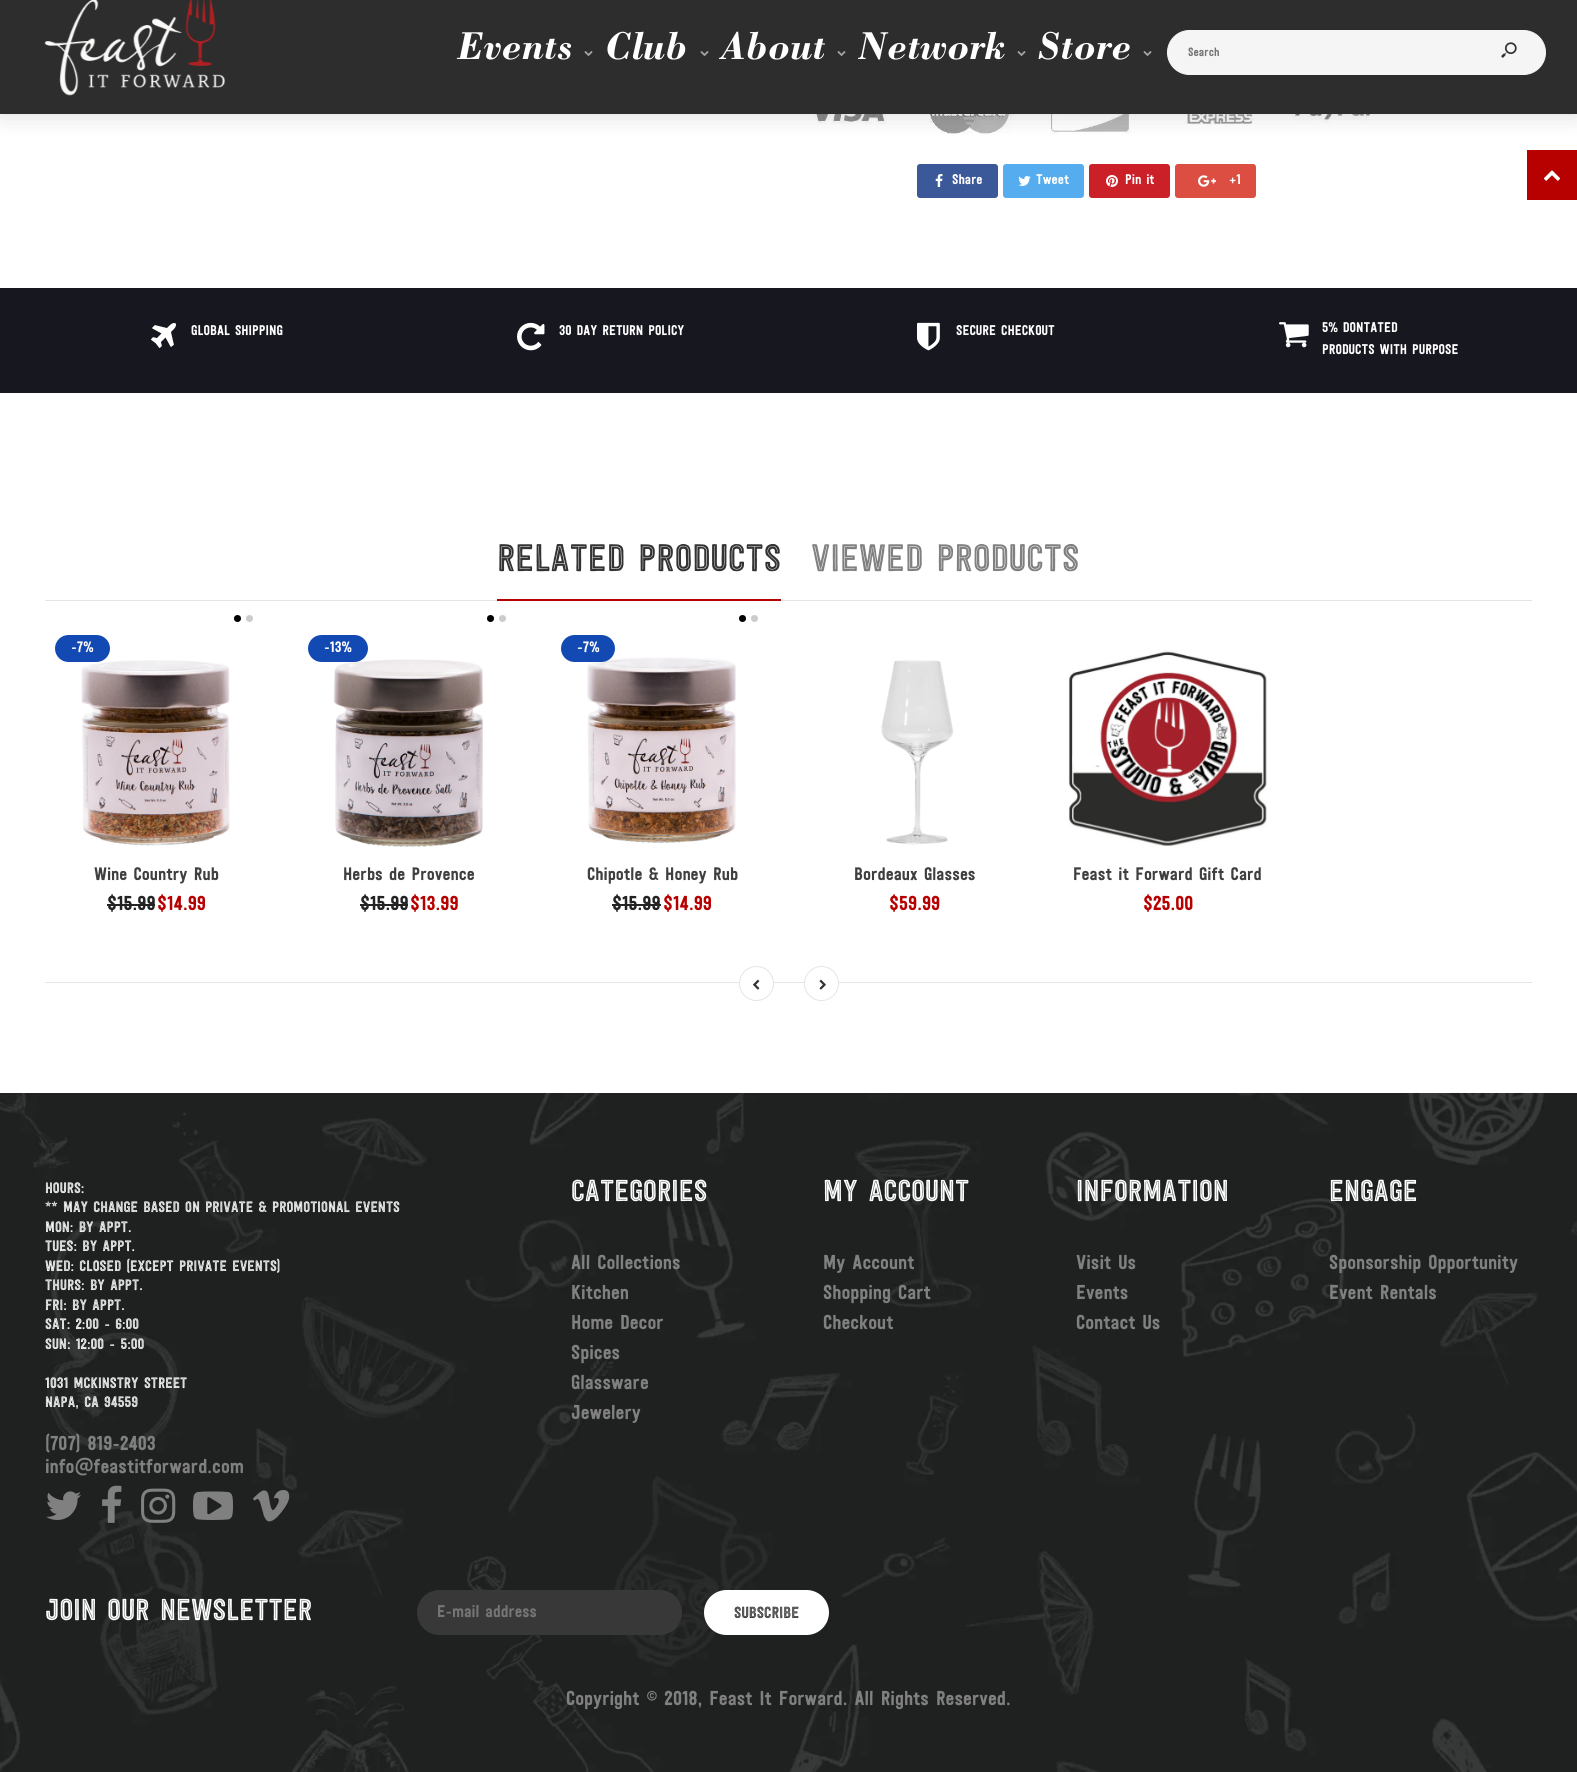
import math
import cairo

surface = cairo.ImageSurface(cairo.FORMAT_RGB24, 1577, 1772)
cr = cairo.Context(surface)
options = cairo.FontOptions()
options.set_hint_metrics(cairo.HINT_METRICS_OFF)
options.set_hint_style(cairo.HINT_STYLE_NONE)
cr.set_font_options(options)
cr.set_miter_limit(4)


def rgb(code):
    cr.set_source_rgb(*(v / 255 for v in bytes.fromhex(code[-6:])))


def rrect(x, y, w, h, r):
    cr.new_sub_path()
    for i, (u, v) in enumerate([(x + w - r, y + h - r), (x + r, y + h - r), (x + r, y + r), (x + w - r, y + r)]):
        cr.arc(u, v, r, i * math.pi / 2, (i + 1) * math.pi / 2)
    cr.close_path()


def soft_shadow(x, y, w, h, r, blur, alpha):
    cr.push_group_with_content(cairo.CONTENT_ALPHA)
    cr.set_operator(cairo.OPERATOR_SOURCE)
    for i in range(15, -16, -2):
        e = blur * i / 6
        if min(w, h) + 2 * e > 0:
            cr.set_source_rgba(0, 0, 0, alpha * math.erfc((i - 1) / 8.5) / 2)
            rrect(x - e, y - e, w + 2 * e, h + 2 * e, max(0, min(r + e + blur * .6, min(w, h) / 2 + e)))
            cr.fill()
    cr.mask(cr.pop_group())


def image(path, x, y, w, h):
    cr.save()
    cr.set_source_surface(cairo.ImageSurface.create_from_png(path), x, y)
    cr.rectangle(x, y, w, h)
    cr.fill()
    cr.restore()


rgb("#ffffff")
cr.paint()
image("img/4.png", 803, 114, 570, 20)
rgb("#000000")
soft_shadow(0, -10, 1577, 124, 0, 12.5, 0.15)
rgb("#2d2d2d")
cr.rectangle(0, 0, 1577, 114)
cr.fill()
image("img/1.png", 44, 0, 181, 96)
image("img/2.png", 584, 51, 9, 6)
image("img/2.png", 700, 51, 9, 6)
image("img/2.png", 837, 51, 9, 6)
image("img/2.png", 1017, 51, 9, 6)
image("img/2.png", 1143, 51, 9, 6)
rgb("#f5f5f5")
rrect(1167.5, 30.5, 378, 44, 22)
cr.fill_preserve()
cr.set_line_width(1)
cr.stroke()
image("img/3.png", 1501, 42, 16, 16)
rgb("#3b5998")
rrect(917, 164, 81, 34, 3)
cr.fill()
image("img/5.png", 935, 174, 8, 13)
rgb("#55acee")
rrect(1003, 164, 81, 34, 3)
cr.fill()
image("img/6.png", 1018, 176, 13, 10)
rgb("#cb2027")
rrect(1089, 164, 81, 34, 3)
cr.fill()
image("img/7.png", 1106, 175, 12, 12)
rgb("#dc4e41")
rrect(1175, 164, 81, 34, 3)
cr.fill()
image("img/8.png", 1198, 175, 18, 12)
rgb("#171720")
cr.rectangle(0, 288, 1577, 105)
cr.fill()
image("img/9.png", 151, 323, 25, 25)
image("img/10.png", 517, 322, 28, 29)
image("img/11.png", 917, 322, 23, 29)
image("img/12.png", 1279, 322, 30, 26)
rgb("#e5e5e5")
cr.rectangle(45, 600, 1487, 1)
cr.fill()
rgb("#b70000")
cr.rectangle(497, 599, 284, 2)
cr.fill()
rgb("#000000")
cr.arc(237.5, 618.5, 3.5, 0, 2 * math.pi)
cr.fill()
rgb("#cccccc")
cr.arc(249.5, 618.5, 3.5, 0, 2 * math.pi)
cr.fill()
image("img/13.png", 81, 660, 149, 186)
rgb("#1349b2")
rrect(55, 635, 55, 27, 13.5)
cr.fill()
rgb("#232323")
cr.rectangle(107, 904, 48, 2)
cr.fill()
rgb("#000000")
cr.arc(490.5, 618.5, 3.5, 0, 2 * math.pi)
cr.fill()
rgb("#cccccc")
cr.arc(502.5, 618.5, 3.5, 0, 2 * math.pi)
cr.fill()
image("img/14.png", 333, 659, 150, 188)
rgb("#1349b2")
rrect(308, 635, 60, 27, 13.5)
cr.fill()
rgb("#232323")
cr.rectangle(360, 904, 48, 2)
cr.fill()
rgb("#000000")
cr.arc(742.5, 618.5, 3.5, 0, 2 * math.pi)
cr.fill()
rgb("#cccccc")
cr.arc(754.5, 618.5, 3.5, 0, 2 * math.pi)
cr.fill()
image("img/15.png", 587, 657, 149, 186)
rgb("#1349b2")
rrect(561, 635, 54, 27, 13.5)
cr.fill()
rgb("#232323")
cr.rectangle(612, 904, 49, 2)
cr.fill()
image("img/16.png", 881, 660, 73, 185)
image("img/17.png", 1068, 650, 199, 196)
rgb("#e5e5e5")
cr.rectangle(45, 982, 1487, 1)
cr.fill()
rgb("#ffffff")
cr.arc(756.5, 983.5, 17, 0, 2 * math.pi)
cr.fill_preserve()
rgb("#e5e5e5")
cr.stroke()
image("img/18.png", 753, 979, 7, 11)
rgb("#ffffff")
cr.arc(821.5, 983.5, 17, 0, 2 * math.pi)
cr.fill_preserve()
rgb("#e5e5e5")
cr.stroke()
image("img/19.png", 819, 979, 7, 11)
image("img/20.png", 0, 1093, 1577, 679)
image("img/21.png", 46, 1491, 35, 29)
image("img/22.png", 102, 1485, 20, 38)
image("img/23.png", 141, 1488, 35, 35)
image("img/24.png", 193, 1491, 40, 29)
image("img/25.png", 253, 1490, 37, 32)
rgb("#383838")
rrect(417, 1590, 265, 45, 22.5)
cr.fill()
rgb("#ffffff")
rrect(704, 1590, 125, 45, 22.5)
cr.fill()
rgb("#b70000")
cr.rectangle(1527, 150, 50, 50)
cr.fill()
image("img/26.png", 1543, 170, 18, 11)
cr.select_font_face("Bodoni", cairo.FONT_SLANT_ITALIC, cairo.FONT_WEIGHT_BOLD)
cr.set_font_size(40)
rgb("#ffffff")
for x, y, s in [
    (457, 59, "Events"),
    (605, 59, "Club"),
    (721, 59, "About"),
    (858, 59, "Network"),
    (1038, 59, "Store"),
]:
    cr.move_to(x, y)
    cr.show_text(s)
cr.select_font_face("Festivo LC")
cr.set_font_size(12)
rgb("#757575")
cr.move_to(1188, 56)
cr.show_text("Search")
cr.set_font_size(14)
rgb("#ffffff")
for x, y, s in [
    (952, 184, "Share"),
    (1036, 184, "Tweet"),
    (1125, 184, "Pin it"),
    (1229, 184, "+1"),
    (191, 335, "GLOBAL SHIPPING"),
    (559, 335, "30 DAY RETURN POLICY"),
    (956, 335, "SECURE CHECKOUT"),
    (1322, 332, "5% DONTATED"),
    (1322, 354, "PRODUCTS WITH PURPOSE"),
]:
    cr.move_to(x, y)
    cr.show_text(s)
cr.select_font_face("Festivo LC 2")
cr.set_font_size(38)
rgb("#333333")
cr.move_to(497, 571)
cr.show_text("RELATED PRODUCTS")
rgb("#808080")
cr.move_to(811, 571)
cr.show_text("VIEWED PRODUCTS")
cr.select_font_face("Festivo LC")
cr.set_font_size(15)
rgb("#ffffff")
cr.move_to(71, 652)
cr.show_text("-7%")
cr.set_font_size(18)
rgb("#3f3f3f")
cr.move_to(94, 880)
cr.show_text("Wine Country Rub")
cr.set_font_size(20)
rgb("#232323")
cr.move_to(107, 910)
cr.show_text("$15.99")
rgb("#b70000")
cr.move_to(157, 910)
cr.show_text("$14.99")
cr.set_font_size(15)
rgb("#ffffff")
cr.move_to(324, 652)
cr.show_text("-13%")
cr.set_font_size(18)
rgb("#3f3f3f")
cr.move_to(343, 880)
cr.show_text("Herbs de Provence")
cr.set_font_size(20)
rgb("#232323")
cr.move_to(360, 910)
cr.show_text("$15.99")
rgb("#b70000")
cr.move_to(410, 910)
cr.show_text("$13.99")
cr.set_font_size(15)
rgb("#ffffff")
cr.move_to(577, 652)
cr.show_text("-7%")
cr.set_font_size(18)
rgb("#3f3f3f")
cr.move_to(587, 880)
cr.show_text("Chipotle & Honey Rub")
cr.set_font_size(20)
rgb("#232323")
cr.move_to(612, 910)
cr.show_text("$15.99")
rgb("#b70000")
cr.move_to(663, 910)
cr.show_text("$14.99")
cr.set_font_size(18)
rgb("#3f3f3f")
cr.move_to(854, 880)
cr.show_text("Bordeaux Glasses")
cr.set_font_size(20)
rgb("#b70000")
cr.move_to(889, 910)
cr.show_text("$59.99")
cr.set_font_size(18)
rgb("#3f3f3f")
cr.move_to(1073, 880)
cr.show_text("Feast it Forward Gift Card")
cr.set_font_size(20)
rgb("#b70000")
cr.move_to(1143, 910)
cr.show_text("$25.00")
cr.select_font_face("Festivo LC 2")
cr.set_font_size(15)
rgb("#ffffff")
for x, y, s in [
    (45, 1193, "HOURS:"),
    (45, 1212, "** MAY CHANGE BASED ON PRIVATE & PROMOTIONAL EVENTS"),
    (45, 1232, "MON: BY APPT."),
    (45, 1251, "TUES: BY APPT."),
    (45, 1271, "WED: CLOSED (EXCEPT PRIVATE EVENTS)"),
    (45, 1290, "THURS: BY APPT."),
    (45, 1310, "FRI: BY APPT."),
    (45, 1329, "SAT: 2:00 - 6:00"),
    (45, 1349, "SUN: 12:00 - 5:00"),
    (45, 1388, "1031 MCKINSTRY STREET"),
    (45, 1407, "NAPA, CA 94559"),
]:
    cr.move_to(x, y)
    cr.show_text(s)
cr.select_font_face("Festivo LC")
cr.set_font_size(20)
rgb("#808080")
cr.move_to(45, 1450)
cr.show_text("(707) 819-2403")
cr.move_to(45, 1473)
cr.show_text("info@feastitforward.com")
cr.select_font_face("Festivo LC 2")
cr.set_font_size(30)
rgb("#ffffff")
cr.move_to(571, 1201)
cr.show_text("CATEGORIES")
cr.select_font_face("Festivo LC")
cr.set_font_size(20)
rgb("#808080")
for x, y, s in [
    (571, 1269, "All Collections"),
    (571, 1299, "Kitchen"),
    (571, 1329, "Home Decor"),
    (571, 1359, "Spices"),
    (571, 1389, "Glassware"),
    (571, 1419, "Jewelery"),
]:
    cr.move_to(x, y)
    cr.show_text(s)
cr.select_font_face("Festivo LC 2")
cr.set_font_size(30)
rgb("#ffffff")
cr.move_to(823, 1201)
cr.show_text("MY ACCOUNT")
cr.select_font_face("Festivo LC")
cr.set_font_size(20)
rgb("#808080")
for x, y, s in [
    (823, 1269, "My Account"),
    (823, 1299, "Shopping Cart"),
    (823, 1329, "Checkout"),
]:
    cr.move_to(x, y)
    cr.show_text(s)
cr.select_font_face("Festivo LC 2")
cr.set_font_size(30)
rgb("#ffffff")
cr.move_to(1076, 1201)
cr.show_text("INFORMATION")
cr.select_font_face("Festivo LC")
cr.set_font_size(20)
rgb("#808080")
for x, y, s in [
    (1076, 1269, "Visit Us"),
    (1076, 1299, "Events"),
    (1076, 1329, "Contact Us"),
]:
    cr.move_to(x, y)
    cr.show_text(s)
cr.select_font_face("Festivo LC 2")
cr.set_font_size(30)
rgb("#ffffff")
cr.move_to(1329, 1201)
cr.show_text("ENGAGE")
cr.select_font_face("Festivo LC")
cr.set_font_size(20)
rgb("#808080")
cr.move_to(1329, 1269)
cr.show_text("Sponsorship Opportunity")
cr.move_to(1329, 1299)
cr.show_text("Event Rentals")
cr.select_font_face("Festivo LC 2")
cr.set_font_size(30)
rgb("#ffffff")
cr.move_to(45, 1620)
cr.show_text("JOIN OUR NEWSLETTER")
cr.select_font_face("Festivo LC")
cr.set_font_size(17)
rgb("#757575")
cr.move_to(437, 1617)
cr.show_text("E-mail address")
cr.select_font_face("Festivo LC 2")
cr.set_font_size(16)
rgb("#333333")
cr.move_to(734, 1618)
cr.show_text("SUBSCRIBE")
cr.select_font_face("Festivo LC")
cr.set_font_size(20)
rgb("#808080")
cr.move_to(566, 1705)
cr.show_text("Copyright © 2018, Feast It Forward. All Rights Reserved.")
surface.write_to_png("page.png")
